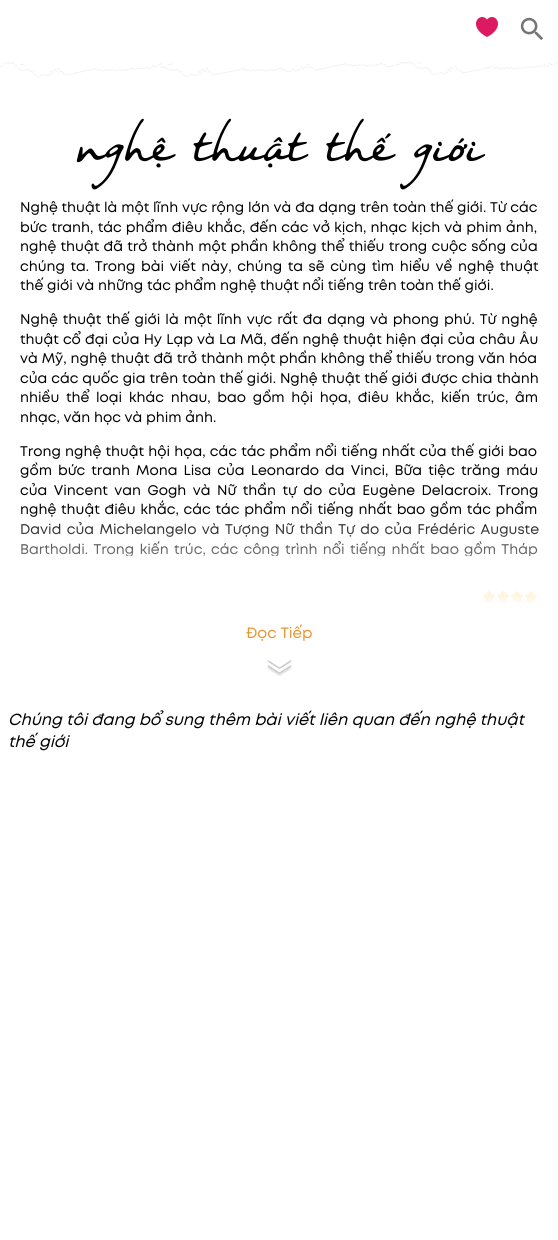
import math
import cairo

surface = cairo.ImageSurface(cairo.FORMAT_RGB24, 558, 1240)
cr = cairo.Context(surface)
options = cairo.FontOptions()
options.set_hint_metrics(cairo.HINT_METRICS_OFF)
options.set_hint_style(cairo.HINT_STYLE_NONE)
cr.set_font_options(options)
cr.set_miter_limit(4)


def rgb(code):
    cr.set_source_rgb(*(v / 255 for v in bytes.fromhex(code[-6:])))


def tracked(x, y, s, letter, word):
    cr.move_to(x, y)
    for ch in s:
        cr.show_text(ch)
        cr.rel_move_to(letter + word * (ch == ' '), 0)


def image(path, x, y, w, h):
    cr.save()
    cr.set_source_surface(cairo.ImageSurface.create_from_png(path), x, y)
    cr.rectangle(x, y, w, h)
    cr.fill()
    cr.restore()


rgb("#ffffff")
cr.paint()
image("img/1.png", 476, 17, 22, 20)
image("img/2.png", 520, 17, 23, 23)
image("img/3.png", 0, 62, 558, 15)
image("img/4.png", 483, 591, 12, 12)
image("img/4.png", 497, 591, 12, 12)
image("img/4.png", 511, 591, 12, 12)
image("img/4.png", 525, 591, 12, 12)
image("img/5.png", 267, 665, 25, 9)
image("img/6.png", 267, 660, 25, 9)
image("img/7.png", 267, 667, 25, 9)
cr.select_font_face("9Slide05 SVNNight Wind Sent")
cr.set_font_size(50)
rgb("#000000")
cr.move_to(76, 161)
cr.show_text("nghệ thuật thế giới")
cr.select_font_face("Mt")
cr.set_font_size(14)
tracked(20, 212, "Nghệ thuật là một lĩnh vực rộng lớn và đa dạng trên toàn thế giới. Từ các", 0, 0.1)
tracked(20, 232, "bức tranh, tác phẩm điêu khắc, đến các vở kịch, nhạc kịch và phim ảnh,", 0, 0.5)
tracked(20, 251, "nghệ thuật đã trở thành một phần không thể thiếu trong cuộc sống của", 0, 0.6)
tracked(20, 271, "chúng ta. Trong bài viết này, chúng ta sẽ cùng tìm hiểu về nghệ thuật", 0, 1.9)
cr.move_to(20, 290)
cr.show_text("thế giới và những tác phẩm nghệ thuật nổi tiếng trên toàn thế giới.")
tracked(20, 324, "Nghệ thuật thế giới là một lĩnh vực rất đa dạng và phong phú. Từ nghệ", 0, 1.25)
tracked(20, 344, "thuật cổ đại của Hy Lạp và La Mã, đến nghệ thuật hiện đại của châu Âu", 0, 0.5)
tracked(20, 363, "và Mỹ, nghệ thuật đã trở thành một phần không thể thiếu trong văn hóa", 0, 0.25)
tracked(20, 383, "của các quốc gia trên toàn thế giới. Nghệ thuật thế giới được chia thành", 0, 0.25)
tracked(20, 402, "nhiều thể loại khác nhau, bao gồm hội họa, điêu khắc, kiến trúc, âm", 0, 3)
cr.move_to(20, 422)
cr.show_text("nhạc, văn học và phim ảnh.")
tracked(20, 456, "Trong nghệ thuật hội họa, các tác phẩm nổi tiếng nhất của thế giới bao", 0, 0.5)
tracked(20, 475, "gồm bức tranh Mona Lisa của Leonardo da Vinci, Bữa tiệc trăng máu", 0, 2.4)
tracked(20, 495, "của Vincent van Gogh và Nữ thần tự do của Eugène Delacroix. Trong", 0, 2.75)
tracked(20, 514, "nghệ thuật điêu khắc, các tác phẩm nổi tiếng nhất bao gồm tác phẩm", 0, 1.1)
tracked(20, 534, "David của Michelangelo và Tượng Nữ thần Tự do của Frédéric Auguste", 0, 1.75)
cr.save()
cr.rectangle(8, 184, 542, 372)
cr.clip()
tracked(20, 554, "Bartholdi. Trong kiến trúc, các công trình nổi tiếng nhất bao gồm Tháp", 0, 1.6)
cr.restore()
gradient = cairo.LinearGradient(279, 510, 279, 710)
gradient.add_color_stop_rgba(0, 1, 1, 1, 0)
gradient.add_color_stop_rgba(0.5, 1, 1, 1, 1)
gradient.add_color_stop_rgba(1, 1, 1, 1, 1)
cr.set_source(gradient)
cr.rectangle(21, 512, 517, 91)
cr.fill()
cr.set_font_size(15)
rgb("#e8952f")
cr.move_to(246, 638)
cr.show_text("Đọc Tiếp")
cr.select_font_face("Mt", cairo.FONT_SLANT_ITALIC)
cr.set_font_size(16)
rgb("#000000")
cr.move_to(8, 725)
cr.show_text("Chúng tôi đang bổ sung thêm bài viết liên quan đến nghệ thuật")
cr.move_to(8, 747)
cr.show_text("thế giới")
surface.write_to_png("page.png")
